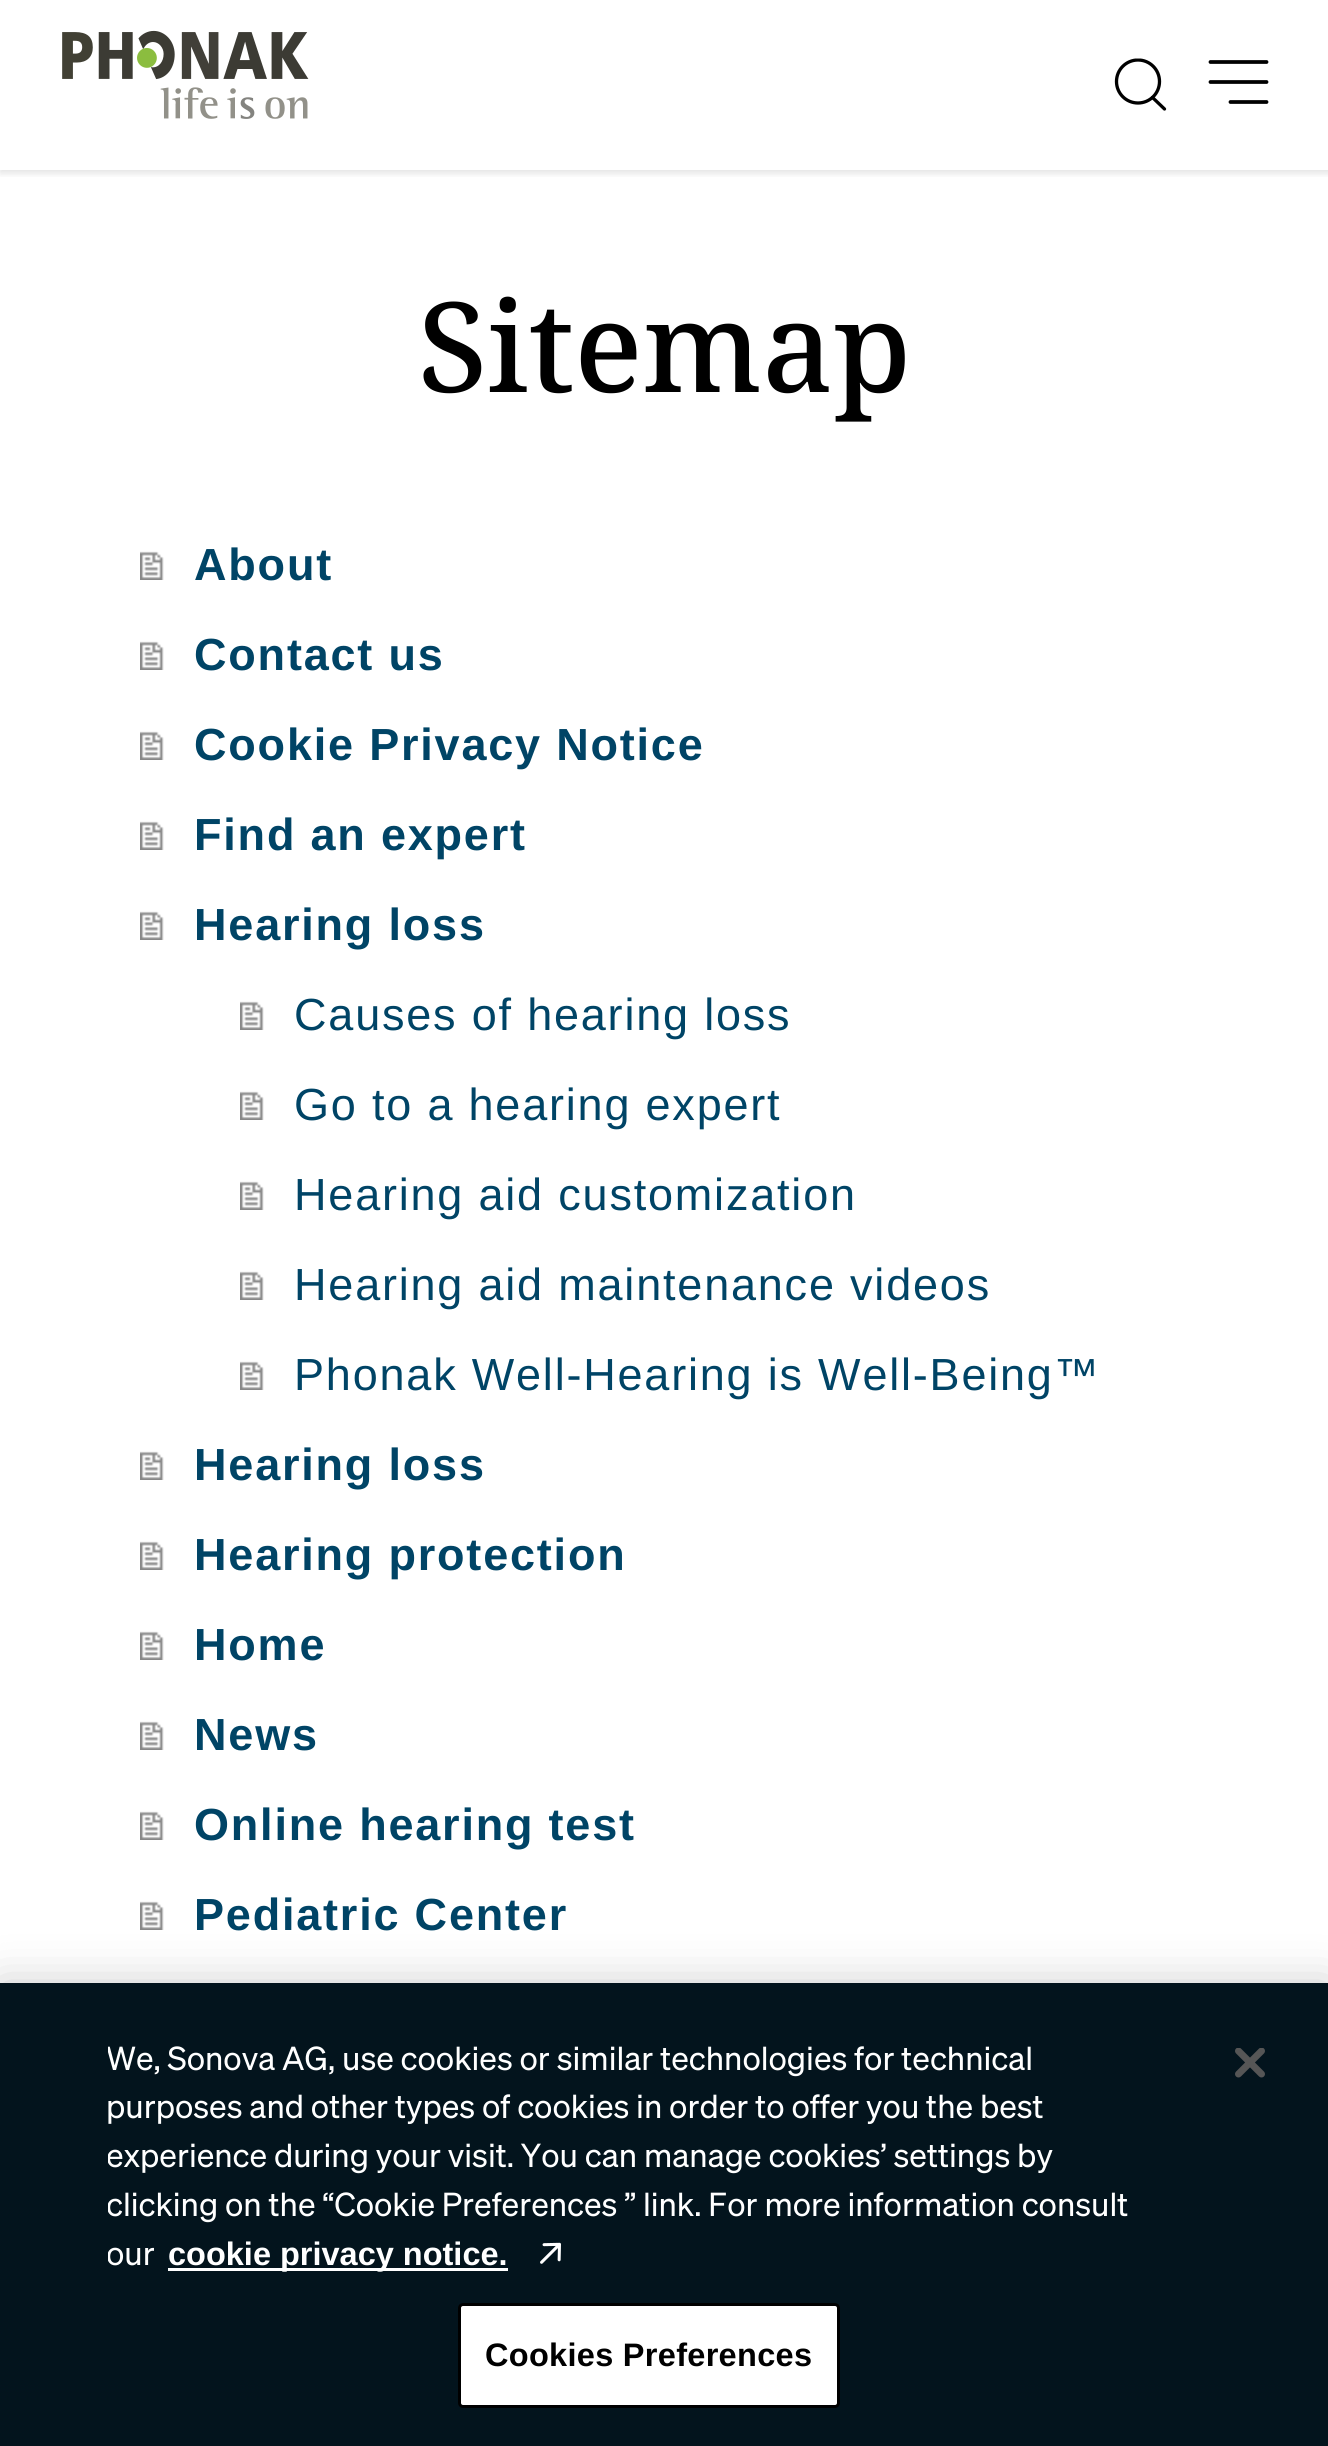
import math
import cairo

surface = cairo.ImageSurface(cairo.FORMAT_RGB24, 1328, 2446)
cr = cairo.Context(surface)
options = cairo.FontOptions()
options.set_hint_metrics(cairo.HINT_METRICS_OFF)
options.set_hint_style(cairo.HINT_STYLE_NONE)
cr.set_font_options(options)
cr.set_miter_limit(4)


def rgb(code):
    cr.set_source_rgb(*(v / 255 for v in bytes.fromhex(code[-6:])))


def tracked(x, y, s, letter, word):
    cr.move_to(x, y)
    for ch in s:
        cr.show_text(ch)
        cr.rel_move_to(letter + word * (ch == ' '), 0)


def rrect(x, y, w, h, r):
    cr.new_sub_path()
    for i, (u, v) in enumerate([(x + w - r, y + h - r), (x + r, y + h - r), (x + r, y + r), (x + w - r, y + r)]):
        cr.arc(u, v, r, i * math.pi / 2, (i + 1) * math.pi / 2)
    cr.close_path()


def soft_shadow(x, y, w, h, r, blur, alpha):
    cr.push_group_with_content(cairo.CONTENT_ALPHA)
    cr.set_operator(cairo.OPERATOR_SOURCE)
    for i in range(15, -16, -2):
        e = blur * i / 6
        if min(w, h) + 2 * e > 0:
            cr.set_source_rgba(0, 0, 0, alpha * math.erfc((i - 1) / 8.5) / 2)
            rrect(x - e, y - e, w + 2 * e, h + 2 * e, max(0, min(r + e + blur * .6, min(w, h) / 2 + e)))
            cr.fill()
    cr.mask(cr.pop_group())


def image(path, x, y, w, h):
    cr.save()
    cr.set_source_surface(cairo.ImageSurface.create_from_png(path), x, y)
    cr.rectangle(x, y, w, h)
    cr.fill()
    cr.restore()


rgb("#ffffff")
cr.paint()
cr.save()
cr.rectangle(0, 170, 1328, 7)
cr.clip()
rgb("#000000")
soft_shadow(0, 3, 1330, 170, 0, 4, 0.12)
cr.restore()
image("img/1.png", 62, 30, 247, 89)
cr.new_path()
cr.move_to(1152.5, 97.5)
cr.line_to(1164.5, 109)
rgb("#000000")
cr.set_line_width(3.3)
cr.set_line_cap(cairo.LINE_CAP_ROUND)
cr.stroke()
cr.save()
cr.new_path()
cr.move_to(1113, 58.5)
cr.line_to(1166, 58.5)
cr.line_to(1166, 111.5)
cr.line_to(1113, 111.5)
cr.close_path()
cr.clip()
cr.arc(1138, 81.5, 21.5, 0, 2 * math.pi)
cr.set_line_cap(cairo.LINE_CAP_BUTT)
cr.stroke()
cr.restore()
cr.save()
cr.new_path()
cr.move_to(1208.5, 54)
cr.line_to(1268.5, 54)
cr.line_to(1268.5, 114)
cr.line_to(1208.5, 114)
cr.close_path()
cr.clip()
cr.new_path()
cr.move_to(1210.5, 62)
cr.line_to(1266.5, 62)
cr.move_to(1210.5, 82)
cr.line_to(1266.5, 82)
cr.move_to(1230.5, 102)
cr.line_to(1266.5, 102)
cr.set_line_width(3.8)
cr.stroke()
cr.restore()
image("img/2.png", 140, 551, 24, 29)
image("img/2.png", 140, 641, 24, 29)
image("img/2.png", 140, 731, 24, 29)
image("img/2.png", 140, 821, 24, 29)
image("img/2.png", 140, 911, 24, 29)
image("img/3.png", 240, 1001, 24, 29)
image("img/3.png", 240, 1091, 24, 29)
image("img/3.png", 240, 1181, 24, 29)
image("img/3.png", 240, 1271, 24, 29)
image("img/3.png", 240, 1361, 24, 29)
image("img/2.png", 140, 1451, 24, 29)
image("img/2.png", 140, 1541, 24, 29)
image("img/2.png", 140, 1631, 24, 29)
image("img/2.png", 140, 1721, 24, 29)
image("img/2.png", 140, 1811, 24, 29)
image("img/2.png", 140, 1901, 24, 29)
rgb("#000000")
soft_shadow(0, 1983, 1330, 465, 0, 22.5, 0.2)
rgb("#03141d")
cr.rectangle(0, 1983, 1328, 463)
cr.fill()
rgb("#ffffff")
cr.rectangle(168, 2268, 340, 3)
cr.fill()
image("img/4.png", 540, 2242, 21, 22)
rrect(459.5, 2304.5, 379, 102, 3.5)
cr.fill_preserve()
rgb("#000000")
cr.set_line_width(3)
cr.set_line_cap(cairo.LINE_CAP_BUTT)
cr.stroke()
image("img/5.png", 1235, 2048, 30, 30)
cr.select_font_face("Noto Serif Medium")
cr.set_font_size(125)
cr.move_to(418, 392)
cr.show_text("Sitemap")
cr.select_font_face("Liberation Sans", cairo.FONT_SLANT_NORMAL, cairo.FONT_WEIGHT_BOLD)
cr.set_font_size(45)
rgb("#004466")
for x, y, s in [
    (194, 580, "About"),
    (194, 670, "Contact us"),
    (194, 760, "Cookie Privacy Notice"),
    (194, 850, "Find an expert"),
    (194, 940, "Hearing loss"),
]:
    tracked(x, y, s, 1.8, 0)
cr.select_font_face("Liberation Sans")
for x, y, s in [
    (294, 1030, "Causes of hearing loss"),
    (294, 1120, "Go to a hearing expert"),
    (294, 1210, "Hearing aid customization"),
    (294, 1300, "Hearing aid maintenance videos"),
    (294, 1390, "Phonak Well-Hearing is Well-Being™"),
]:
    tracked(x, y, s, 1.8, 0)
cr.select_font_face("Liberation Sans", cairo.FONT_SLANT_NORMAL, cairo.FONT_WEIGHT_BOLD)
for x, y, s in [
    (194, 1480, "Hearing loss"),
    (194, 1570, "Hearing protection"),
    (194, 1660, "Home"),
    (194, 1750, "News"),
    (194, 1840, "Online hearing test"),
    (194, 1930, "Pediatric Center"),
]:
    tracked(x, y, s, 1.8, 0)
cr.save()
cr.rectangle(108, 2033, 1055, 245)
cr.clip()
cr.select_font_face("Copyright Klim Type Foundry")
cr.set_font_size(32.5)
rgb("#ffffff")
cr.move_to(106, 2070)
cr.show_text("We, Sonova AG, use cookies or similar technologies for technical")
cr.restore()
cr.select_font_face("Copyright Klim Type Foundry")
cr.set_font_size(32.5)
rgb("#ffffff")
cr.move_to(106, 2118)
cr.show_text("purposes and other types of cookies in order to offer you the best")
cr.save()
cr.rectangle(108, 2033, 1055, 245)
cr.clip()
for x, y, s in [
    (106, 2167, "experience during your visit. You can manage cookies’ settings by"),
    (106, 2216, "clicking on the “Cookie Preferences ” link. For more information consult"),
    (106, 2265, "our"),
]:
    cr.move_to(x, y)
    cr.show_text(s)
cr.restore()
cr.select_font_face("Liberation Sans", cairo.FONT_SLANT_NORMAL, cairo.FONT_WEIGHT_BOLD)
cr.move_to(168, 2265)
cr.show_text("cookie privacy notice.")
rgb("#000000")
tracked(485, 2366, "Cookies Preferences", 0.3, 0)
surface.write_to_png("page.png")
